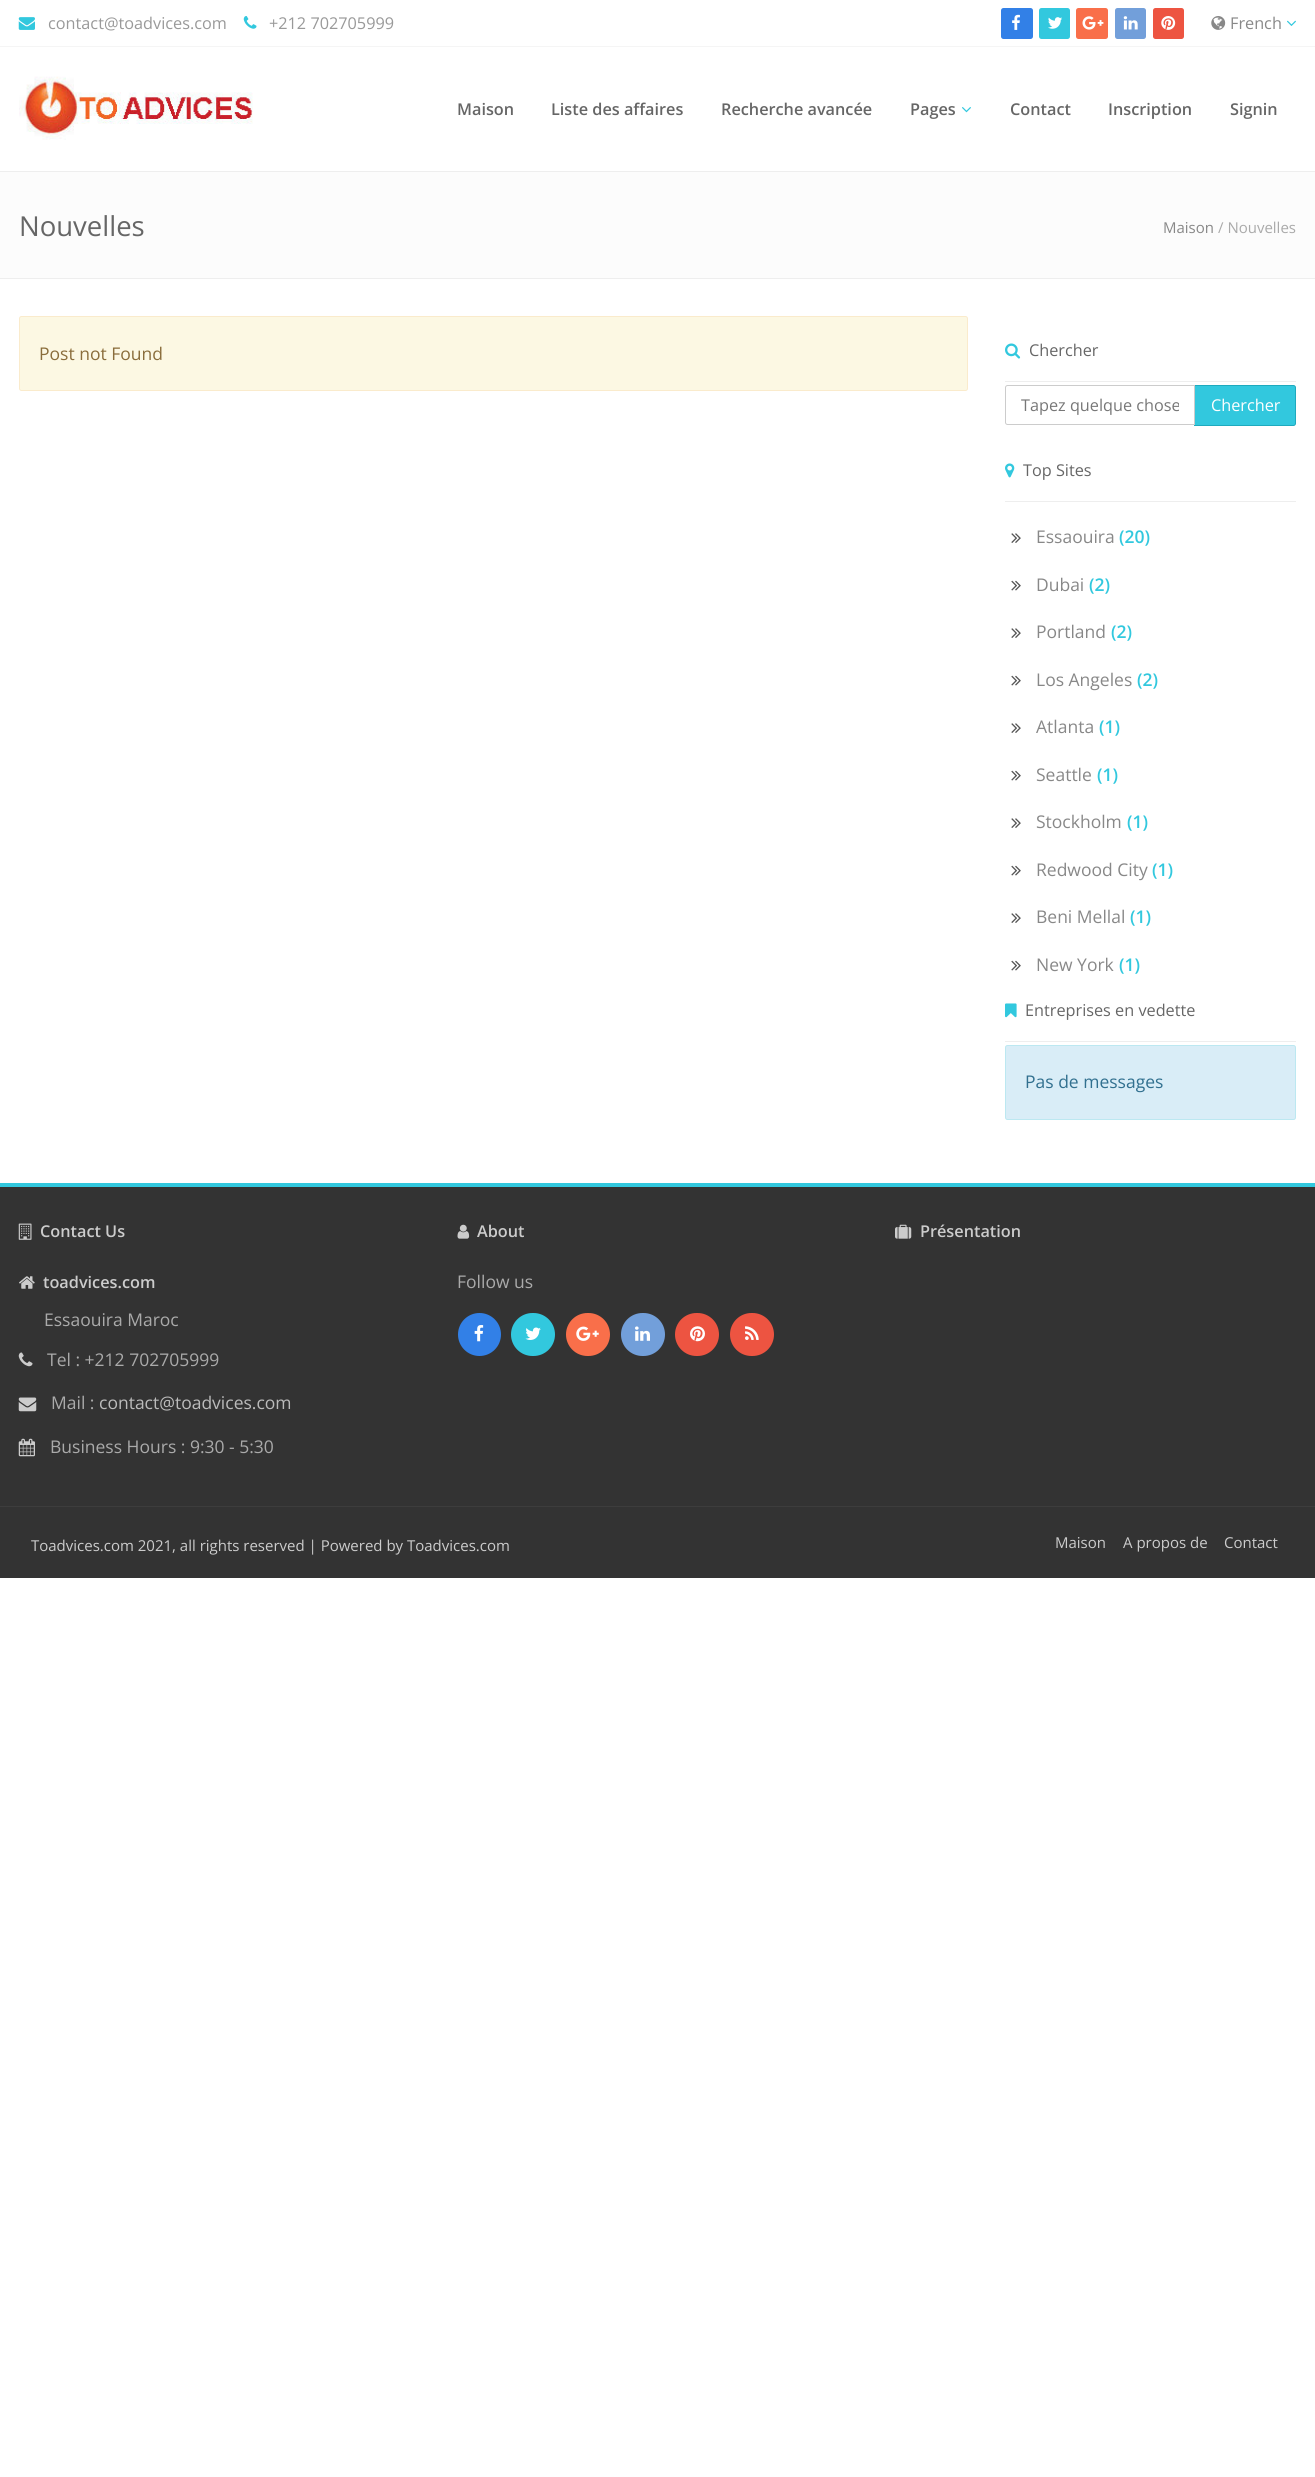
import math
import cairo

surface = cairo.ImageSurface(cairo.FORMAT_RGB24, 1315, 2477)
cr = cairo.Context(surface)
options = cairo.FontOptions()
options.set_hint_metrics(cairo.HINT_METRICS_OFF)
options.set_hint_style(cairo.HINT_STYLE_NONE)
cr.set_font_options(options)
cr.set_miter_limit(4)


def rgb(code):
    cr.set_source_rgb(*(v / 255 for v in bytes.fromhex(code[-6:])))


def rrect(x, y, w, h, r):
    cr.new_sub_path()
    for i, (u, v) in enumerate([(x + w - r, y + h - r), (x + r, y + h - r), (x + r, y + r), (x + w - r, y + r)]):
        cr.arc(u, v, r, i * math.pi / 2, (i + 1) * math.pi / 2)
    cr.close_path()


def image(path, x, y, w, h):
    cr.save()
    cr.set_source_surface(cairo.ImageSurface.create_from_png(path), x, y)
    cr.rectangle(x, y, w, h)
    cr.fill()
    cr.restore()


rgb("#ffffff")
cr.paint()
rgb("#f5f5f5")
cr.rectangle(0, 46, 1315, 1)
cr.fill()
image("img/1.png", 18, 17, 17, 13)
image("img/2.png", 243, 16, 14, 13)
rgb("#3280e7")
rrect(1001, 8, 32, 31, 2.5)
cr.fill()
image("img/3.png", 1012, 14, 8, 16)
rgb("#32c8de")
rrect(1039, 8, 31, 31, 2.5)
cr.fill()
image("img/4.png", 1048, 17, 14, 12)
rgb("#f96f4a")
rrect(1076, 8, 32, 31, 2.5)
cr.fill()
image("img/5.png", 1082, 16, 22, 14)
rgb("#729fda")
rrect(1115, 8, 31, 31, 2.5)
cr.fill()
image("img/6.png", 1123, 16, 15, 14)
rgb("#ed5441")
rrect(1153, 8, 31, 31, 2.5)
cr.fill()
image("img/7.png", 1161, 16, 15, 14)
image("img/8.png", 1211, 16, 15, 14)
image("img/9.png", 1287, 20, 9, 6)
image("img/10.png", 19, 76, 234, 64)
image("img/11.png", 962, 107, 9, 6)
for x, y, w, h, color in [
    (0, 172, 1315, 106, "#fcfcfc"),
    (0, 171, 1315, 1, "#eeeeee"),
    (0, 278, 1315, 1, "#eeeeee"),
]:
    rgb(color)
    cr.rectangle(x, y, w, h)
    cr.fill()
rgb("#fcf8e3")
rrect(19.5, 316.5, 948, 74, 2)
cr.fill_preserve()
rgb("#faebcc")
cr.set_line_width(1)
cr.stroke()
rgb("#eeeeee")
cr.rectangle(1005, 381, 291, 1)
cr.fill()
image("img/12.png", 1005, 343, 16, 16)
rgb("#32c8de")
cr.new_path()
cr.move_to(1194.5, 385.5)
cr.line_to(1293.5, 385.5)
cr.curve_to(1294.5, 385.5, 1295.5, 386.5, 1295.5, 387.5)
cr.line_to(1295.5, 423.5)
cr.curve_to(1295.5, 424.5, 1294.5, 425.5, 1293.5, 425.5)
cr.line_to(1194.5, 425.5)
cr.close_path()
cr.fill_preserve()
rgb("#1faabe")
cr.stroke()
rgb("#ffffff")
cr.new_path()
cr.move_to(1007.5, 385.5)
cr.line_to(1194.5, 385.5)
cr.line_to(1194.5, 424.5)
cr.line_to(1007.5, 424.5)
cr.curve_to(1006.5, 424.5, 1005.5, 423.5, 1005.5, 422.5)
cr.line_to(1005.5, 387.5)
cr.curve_to(1005.5, 386.5, 1006.5, 385.5, 1007.5, 385.5)
cr.close_path()
cr.fill_preserve()
rgb("#cccccc")
cr.stroke()
rgb("#eeeeee")
cr.rectangle(1005, 501, 291, 1)
cr.fill()
image("img/13.png", 1005, 463, 10, 15)
image("img/14.png", 1011, 533, 10, 10)
image("img/15.png", 1011, 580, 10, 11)
image("img/14.png", 1011, 628, 10, 10)
image("img/15.png", 1011, 675, 10, 11)
image("img/14.png", 1011, 723, 10, 10)
image("img/15.png", 1011, 770, 10, 11)
image("img/14.png", 1011, 818, 10, 10)
image("img/15.png", 1011, 865, 10, 11)
image("img/14.png", 1011, 913, 10, 10)
image("img/15.png", 1011, 960, 10, 11)
cr.rectangle(1005, 1041, 291, 1)
cr.fill()
image("img/16.png", 1005, 1003, 12, 15)
rgb("#d9edf7")
rrect(1005.5, 1045.5, 290, 74, 2)
cr.fill_preserve()
rgb("#bce8f1")
cr.stroke()
rgb("#333333")
cr.rectangle(0, 1187, 1315, 319)
cr.fill()
rgb("#32c8de")
cr.rectangle(0, 1183, 1315, 4)
cr.fill()
image("img/17.png", 18, 1223, 14, 17)
image("img/18.png", 19, 1276, 16, 13)
image("img/19.png", 18, 1352, 15, 15)
image("img/20.png", 18, 1397, 19, 15)
image("img/21.png", 18, 1438, 17, 19)
image("img/22.png", 457, 1224, 13, 15)
rgb("#3280e7")
cr.arc(479.5, 1334.5, 21.5, 0, 2 * math.pi)
cr.fill()
image("img/23.png", 474, 1325, 10, 17)
rgb("#32c8de")
rrect(511, 1313, 44, 43, 21.5)
cr.fill()
image("img/24.png", 525, 1327, 16, 13)
rgb("#f96f4a")
rrect(566, 1313, 44, 43, 21.5)
cr.fill()
image("img/25.png", 576, 1326, 23, 15)
rgb("#729fda")
rrect(621, 1313, 44, 43, 21.5)
cr.fill()
image("img/26.png", 635, 1326, 15, 15)
rgb("#ed5441")
rrect(675, 1313, 44, 43, 21.5)
cr.fill()
image("img/27.png", 690, 1326, 15, 16)
rrect(730, 1313, 44, 43, 21.5)
cr.fill()
image("img/28.png", 745, 1326, 14, 14)
image("img/29.png", 895, 1224, 17, 15)
rgb("#333333")
cr.rectangle(0, 1507, 1315, 71)
cr.fill()
rgb("#3d3d3d")
cr.rectangle(0, 1506, 1315, 1)
cr.fill()
cr.select_font_face("Open Sans")
cr.set_font_size(16.25)
rgb("#999999")
cr.move_to(48, 29)
cr.show_text("contact@toadvices.com")
cr.move_to(269, 29)
cr.show_text("+212 702705999")
rgb("#888888")
cr.move_to(1230, 29)
cr.show_text("French")
cr.select_font_face("Open Sans SemiBold")
rgb("#666666")
for x, y, s in [
    (457, 115, "Maison"),
    (551, 115, "Liste des affaires"),
    (721, 115, "Recherche avancée"),
    (910, 115, "Pages"),
    (1010, 115, "Contact"),
    (1108, 115, "Inscription"),
    (1230, 115, "Signin"),
]:
    cr.move_to(x, y)
    cr.show_text(s)
cr.select_font_face("Open Sans")
cr.set_font_size(27.5)
cr.move_to(19, 236)
cr.show_text("Nouvelles")
cr.set_font_size(15)
rgb("#888888")
cr.move_to(1163, 233)
cr.show_text("Maison")
rgb("#aaaaaa")
cr.move_to(1218, 233)
cr.show_text("/ Nouvelles")
cr.set_font_size(17.5)
rgb("#8a6d3b")
cr.move_to(39, 360)
cr.show_text("Post not Found")
cr.set_font_size(16.25)
rgb("#666666")
cr.move_to(1029, 356)
cr.show_text("Chercher")
cr.save()
cr.rectangle(1021, 394, 158, 22)
cr.clip()
rgb("#777777")
cr.move_to(1021, 411)
cr.show_text("Tapez quelque chose")
cr.restore()
rgb("#ffffff")
cr.move_to(1211, 411)
cr.show_text("Chercher")
rgb("#666666")
cr.move_to(1023, 476)
cr.show_text("Top Sites")
cr.set_font_size(17.5)
rgb("#888888")
cr.move_to(1036, 543)
cr.show_text("Essaouira")
cr.select_font_face("Open Sans SemiBold")
rgb("#32c8de")
cr.move_to(1119, 543)
cr.show_text("(20)")
cr.select_font_face("Open Sans")
rgb("#888888")
cr.move_to(1036, 591)
cr.show_text("Dubai")
cr.select_font_face("Open Sans SemiBold")
rgb("#32c8de")
cr.move_to(1089, 591)
cr.show_text("(2)")
cr.select_font_face("Open Sans")
rgb("#888888")
cr.move_to(1036, 638)
cr.show_text("Portland")
cr.select_font_face("Open Sans SemiBold")
rgb("#32c8de")
cr.move_to(1111, 638)
cr.show_text("(2)")
cr.select_font_face("Open Sans")
rgb("#888888")
cr.move_to(1036, 686)
cr.show_text("Los Angeles")
cr.select_font_face("Open Sans SemiBold")
rgb("#32c8de")
cr.move_to(1137, 686)
cr.show_text("(2)")
cr.select_font_face("Open Sans")
rgb("#888888")
cr.move_to(1036, 733)
cr.show_text("Atlanta")
cr.select_font_face("Open Sans SemiBold")
rgb("#32c8de")
cr.move_to(1099, 733)
cr.show_text("(1)")
cr.select_font_face("Open Sans")
rgb("#888888")
cr.move_to(1036, 781)
cr.show_text("Seattle")
cr.select_font_face("Open Sans SemiBold")
rgb("#32c8de")
cr.move_to(1097, 781)
cr.show_text("(1)")
cr.select_font_face("Open Sans")
rgb("#888888")
cr.move_to(1036, 828)
cr.show_text("Stockholm")
cr.select_font_face("Open Sans SemiBold")
rgb("#32c8de")
cr.move_to(1127, 828)
cr.show_text("(1)")
cr.select_font_face("Open Sans")
rgb("#888888")
cr.move_to(1036, 876)
cr.show_text("Redwood City")
cr.select_font_face("Open Sans SemiBold")
rgb("#32c8de")
cr.move_to(1152, 876)
cr.show_text("(1)")
cr.select_font_face("Open Sans")
rgb("#888888")
cr.move_to(1036, 923)
cr.show_text("Beni Mellal")
cr.select_font_face("Open Sans SemiBold")
rgb("#32c8de")
cr.move_to(1130, 923)
cr.show_text("(1)")
cr.select_font_face("Open Sans")
rgb("#888888")
cr.move_to(1036, 971)
cr.show_text("New York")
cr.select_font_face("Open Sans SemiBold")
rgb("#32c8de")
cr.move_to(1119, 971)
cr.show_text("(1)")
cr.select_font_face("Open Sans")
cr.set_font_size(16.25)
rgb("#666666")
cr.move_to(1025, 1016)
cr.show_text("Entreprises en vedette")
cr.set_font_size(17.5)
rgb("#31708f")
cr.move_to(1025, 1088)
cr.show_text("Pas de messages")
cr.select_font_face("Open Sans SemiBold")
cr.set_font_size(16.25)
rgb("#cccccc")
cr.move_to(40, 1237)
cr.show_text("Contact Us")
cr.move_to(43, 1288)
cr.show_text("toadvices.com")
cr.select_font_face("Open Sans")
cr.set_font_size(17.5)
rgb("#aaaaaa")
for x, y, s in [
    (44, 1326, "Essaouira Maroc"),
    (47, 1366, "Tel : +212 702705999"),
    (51, 1409, "Mail :"),
]:
    cr.move_to(x, y)
    cr.show_text(s)
rgb("#bbbbbb")
cr.move_to(99, 1409)
cr.show_text("contact@toadvices.com")
rgb("#aaaaaa")
cr.move_to(50, 1453)
cr.show_text("Business Hours : 9:30 - 5:30")
cr.select_font_face("Open Sans SemiBold")
cr.set_font_size(16.25)
rgb("#cccccc")
cr.move_to(477, 1237)
cr.show_text("About")
cr.select_font_face("Open Sans")
cr.set_font_size(17.5)
rgb("#aaaaaa")
cr.move_to(457, 1288)
cr.show_text("Follow us")
cr.select_font_face("Open Sans SemiBold")
cr.set_font_size(16.25)
rgb("#cccccc")
cr.move_to(920, 1237)
cr.show_text("Présentation")
cr.select_font_face("Open Sans")
cr.set_font_size(15)
for x, y, s in [
    (31, 1551, "Toadvices.com 2021, all rights reserved | Powered by Toadvices.com"),
    (1055, 1548, "Maison"),
    (1123, 1548, "A propos de"),
    (1224, 1548, "Contact"),
]:
    cr.move_to(x, y)
    cr.show_text(s)
surface.write_to_png("page.png")
